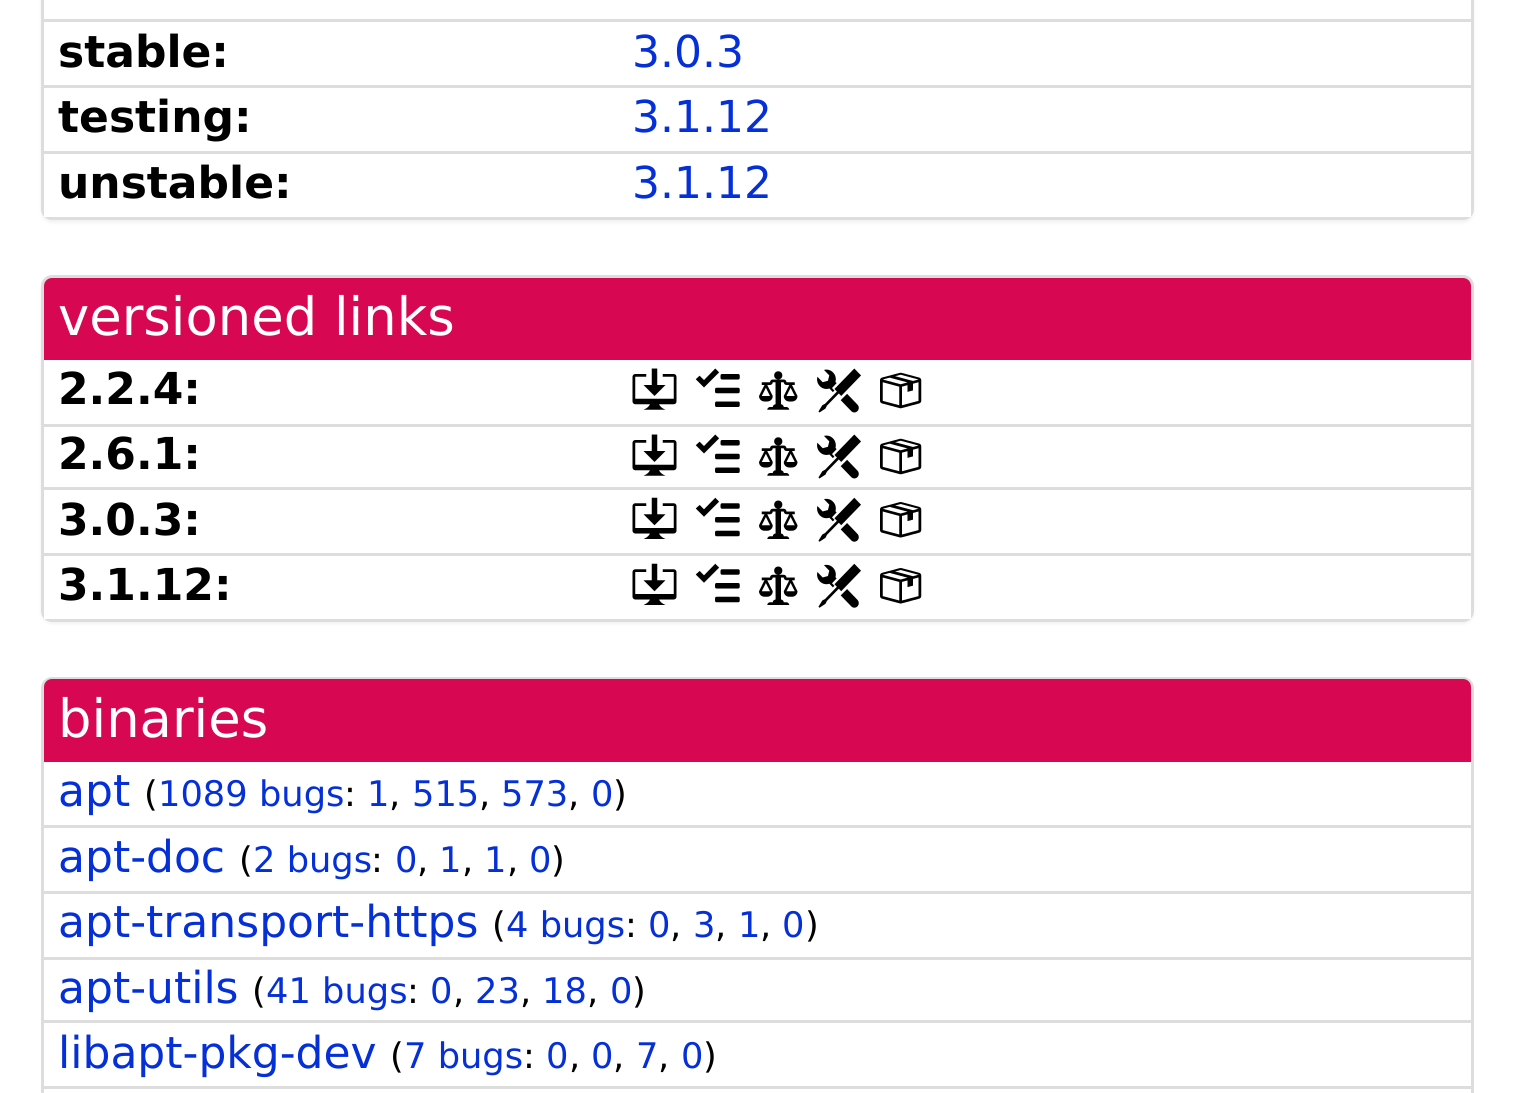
import math
import cairo

surface = cairo.ImageSurface(cairo.FORMAT_RGB24, 1514, 1093)
cr = cairo.Context(surface)
options = cairo.FontOptions()
options.set_hint_metrics(cairo.HINT_METRICS_OFF)
options.set_hint_style(cairo.HINT_STYLE_NONE)
cr.set_font_options(options)
cr.set_miter_limit(4)


def rgb(code):
    cr.set_source_rgb(*(v / 255 for v in bytes.fromhex(code[-6:])))


def rrect(x, y, w, h, r):
    cr.new_sub_path()
    for i, (u, v) in enumerate([(x + w - r, y + h - r), (x + r, y + h - r), (x + r, y + r), (x + w - r, y + r)]):
        cr.arc(u, v, r, i * math.pi / 2, (i + 1) * math.pi / 2)
    cr.close_path()


def soft_shadow(x, y, w, h, r, blur, alpha):
    cr.push_group_with_content(cairo.CONTENT_ALPHA)
    cr.set_operator(cairo.OPERATOR_SOURCE)
    for i in range(15, -16, -2):
        e = blur * i / 6
        if min(w, h) + 2 * e > 0:
            cr.set_source_rgba(0, 0, 0, alpha * math.erfc((i - 1) / 8.5) / 2)
            rrect(x - e, y - e, w + 2 * e, h + 2 * e, max(0, min(r + e + blur * .6, min(w, h) / 2 + e)))
            cr.fill()
    cr.mask(cr.pop_group())


def image(path, x, y, w, h):
    cr.save()
    cr.set_source_surface(cairo.ImageSurface.create_from_png(path), x, y)
    cr.rectangle(x, y, w, h)
    cr.fill()
    cr.restore()


rgb("#ffffff")
cr.paint()
rgb("#000000")
soft_shadow(41, -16, 1433, 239, 11, 1.5, 0.05)
rrect(42.5, -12.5, 1430, 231, 9.5)
rgb("#dddddd")
cr.set_line_width(3)
cr.stroke()
for x, y, w, h, color in [
    (44, 0, 1427, 217, "#ffffff"),
    (44, 19, 1427, 3, "#dddddd"),
    (44, 85, 1427, 3, "#dddddd"),
    (44, 151, 1427, 3, "#dddddd"),
]:
    rgb(color)
    cr.rectangle(x, y, w, h)
    cr.fill()
rgb("#000000")
soft_shadow(41, 278, 1433, 346, 11, 1.5, 0.05)
rrect(42.5, 276.5, 1430, 344, 9.5)
rgb("#dddddd")
cr.stroke()
rgb("#d70751")
cr.new_path()
cr.move_to(52, 278)
cr.line_to(1463, 278)
cr.curve_to(1467.5, 278, 1471, 281.5, 1471, 286)
cr.line_to(1471, 363)
cr.line_to(44, 363)
cr.line_to(44, 286)
cr.curve_to(44, 281.5, 47.5, 278, 52, 278)
cr.close_path()
cr.fill()
rgb("#ffffff")
cr.rectangle(44, 360, 1427, 259)
cr.fill()
image("img/1.png", 632, 368, 45, 42)
image("img/2.png", 695, 368, 45, 39)
image("img/3.png", 759, 371, 39, 39)
image("img/4.png", 817, 368, 44, 45)
image("img/5.png", 880, 372, 42, 37)
rgb("#dddddd")
cr.rectangle(44, 424, 1427, 3)
cr.fill()
cr.rectangle(44, 487, 1427, 3)
cr.fill()
image("img/1.png", 632, 434, 45, 42)
image("img/2.png", 695, 434, 45, 39)
image("img/3.png", 759, 437, 39, 39)
image("img/4.png", 817, 434, 44, 45)
image("img/5.png", 880, 438, 42, 37)
image("img/6.png", 632, 497, 45, 42)
image("img/7.png", 695, 497, 45, 40)
image("img/8.png", 759, 500, 39, 39)
image("img/9.png", 817, 497, 44, 45)
image("img/10.png", 880, 502, 42, 36)
cr.rectangle(44, 553, 1427, 3)
cr.fill()
image("img/6.png", 632, 563, 45, 42)
image("img/7.png", 695, 563, 45, 40)
image("img/8.png", 759, 566, 39, 39)
image("img/9.png", 817, 563, 44, 45)
image("img/10.png", 880, 568, 42, 36)
rrect(42.5, 678.5, 1430, 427, 9.5)
cr.stroke()
rgb("#d70751")
cr.new_path()
cr.move_to(52, 679)
cr.line_to(1463, 679)
cr.curve_to(1467.5, 679, 1471, 682.5, 1471, 687)
cr.line_to(1471, 765)
cr.line_to(44, 765)
cr.line_to(44, 687)
cr.curve_to(44, 682.5, 47.5, 679, 52, 679)
cr.close_path()
cr.fill()
for x, y, w, h, color in [
    (44, 762, 1427, 3, "#ffffff"),
    (44, 825, 1427, 3, "#dddddd"),
    (44, 891, 1427, 3, "#dddddd"),
    (44, 957, 1427, 3, "#dddddd"),
    (44, 1020, 1427, 3, "#dddddd"),
    (44, 1086, 1427, 3, "#dddddd"),
]:
    rgb(color)
    cr.rectangle(x, y, w, h)
    cr.fill()
cr.select_font_face("DejaVu Sans", cairo.FONT_SLANT_NORMAL, cairo.FONT_WEIGHT_BOLD)
cr.set_font_size(44)
rgb("#000000")
cr.move_to(58, 67)
cr.show_text("stable:")
cr.select_font_face("DejaVu Sans")
rgb("#0530d7")
cr.move_to(632, 67)
cr.show_text("3.0.3")
cr.select_font_face("DejaVu Sans", cairo.FONT_SLANT_NORMAL, cairo.FONT_WEIGHT_BOLD)
rgb("#000000")
cr.move_to(58, 132)
cr.show_text("testing:")
cr.select_font_face("DejaVu Sans")
rgb("#0530d7")
cr.move_to(632, 132)
cr.show_text("3.1.12")
cr.select_font_face("DejaVu Sans", cairo.FONT_SLANT_NORMAL, cairo.FONT_WEIGHT_BOLD)
rgb("#000000")
cr.move_to(58, 198)
cr.show_text("unstable:")
cr.select_font_face("DejaVu Sans")
rgb("#0530d7")
cr.move_to(632, 198)
cr.show_text("3.1.12")
cr.set_font_size(52.75)
rgb("#ffffff")
cr.move_to(58, 335)
cr.show_text("versioned links")
cr.select_font_face("DejaVu Sans", cairo.FONT_SLANT_NORMAL, cairo.FONT_WEIGHT_BOLD)
cr.set_font_size(44)
rgb("#000000")
for x, y, s in [
    (58, 404, "2.2.4:"),
    (58, 469, "2.6.1:"),
    (58, 535, "3.0.3:"),
    (58, 600, "3.1.12:"),
]:
    cr.move_to(x, y)
    cr.show_text(s)
cr.select_font_face("DejaVu Sans")
cr.set_font_size(52.75)
rgb("#ffffff")
cr.move_to(58, 737)
cr.show_text("binaries")
cr.set_font_size(44)
rgb("#0530d7")
cr.move_to(58, 806)
cr.show_text("apt")
cr.set_font_size(35.25)
rgb("#000000")
cr.move_to(144, 806)
cr.show_text("(")
rgb("#0530d7")
cr.move_to(158, 806)
cr.show_text("1089 bugs")
rgb("#000000")
cr.move_to(344, 806)
cr.show_text(":")
rgb("#0530d7")
cr.move_to(367, 806)
cr.show_text("1")
rgb("#000000")
cr.move_to(389, 806)
cr.show_text(",")
rgb("#0530d7")
cr.move_to(412, 806)
cr.show_text("515")
rgb("#000000")
cr.move_to(479, 806)
cr.show_text(",")
rgb("#0530d7")
cr.move_to(501, 806)
cr.show_text("573")
rgb("#000000")
cr.move_to(568, 806)
cr.show_text(",")
rgb("#0530d7")
cr.move_to(591, 806)
cr.show_text("0")
rgb("#000000")
cr.move_to(613, 806)
cr.show_text(")")
cr.set_font_size(44)
rgb("#0530d7")
cr.move_to(58, 872)
cr.show_text("apt-doc")
cr.set_font_size(35.25)
rgb("#000000")
cr.move_to(239, 872)
cr.show_text("(")
rgb("#0530d7")
cr.move_to(253, 872)
cr.show_text("2 bugs")
rgb("#000000")
cr.move_to(371, 872)
cr.show_text(":")
rgb("#0530d7")
cr.move_to(395, 872)
cr.show_text("0")
rgb("#000000")
cr.move_to(417, 872)
cr.show_text(",")
rgb("#0530d7")
cr.move_to(439, 872)
cr.show_text("1")
rgb("#000000")
cr.move_to(462, 872)
cr.show_text(",")
rgb("#0530d7")
cr.move_to(484, 872)
cr.show_text("1")
rgb("#000000")
cr.move_to(507, 872)
cr.show_text(",")
rgb("#0530d7")
cr.move_to(529, 872)
cr.show_text("0")
rgb("#000000")
cr.move_to(551, 872)
cr.show_text(")")
cr.set_font_size(44)
rgb("#0530d7")
cr.move_to(58, 937)
cr.show_text("apt-transport-https")
cr.set_font_size(35.25)
rgb("#000000")
cr.move_to(492, 937)
cr.show_text("(")
rgb("#0530d7")
cr.move_to(506, 937)
cr.show_text("4 bugs")
rgb("#000000")
cr.move_to(625, 937)
cr.show_text(":")
rgb("#0530d7")
cr.move_to(648, 937)
cr.show_text("0")
rgb("#000000")
cr.move_to(670, 937)
cr.show_text(",")
rgb("#0530d7")
cr.move_to(693, 937)
cr.show_text("3")
rgb("#000000")
cr.move_to(715, 937)
cr.show_text(",")
rgb("#0530d7")
cr.move_to(738, 937)
cr.show_text("1")
rgb("#000000")
cr.move_to(760, 937)
cr.show_text(",")
rgb("#0530d7")
cr.move_to(782, 937)
cr.show_text("0")
rgb("#000000")
cr.move_to(805, 937)
cr.show_text(")")
cr.set_font_size(44)
rgb("#0530d7")
cr.move_to(58, 1003)
cr.show_text("apt-utils")
cr.set_font_size(35.25)
rgb("#000000")
cr.move_to(252, 1003)
cr.show_text("(")
rgb("#0530d7")
cr.move_to(266, 1003)
cr.show_text("41 bugs")
rgb("#000000")
cr.move_to(407, 1003)
cr.show_text(":")
rgb("#0530d7")
cr.move_to(430, 1003)
cr.show_text("0")
rgb("#000000")
cr.move_to(453, 1003)
cr.show_text(",")
rgb("#0530d7")
cr.move_to(475, 1003)
cr.show_text("23")
rgb("#000000")
cr.move_to(520, 1003)
cr.show_text(",")
rgb("#0530d7")
cr.move_to(542, 1003)
cr.show_text("18")
rgb("#000000")
cr.move_to(587, 1003)
cr.show_text(",")
rgb("#0530d7")
cr.move_to(610, 1003)
cr.show_text("0")
rgb("#000000")
cr.move_to(632, 1003)
cr.show_text(")")
cr.set_font_size(44)
rgb("#0530d7")
cr.move_to(58, 1068)
cr.show_text("libapt-pkg-dev")
cr.set_font_size(35.25)
rgb("#000000")
cr.move_to(390, 1068)
cr.show_text("(")
rgb("#0530d7")
cr.move_to(404, 1068)
cr.show_text("7 bugs")
rgb("#000000")
cr.move_to(523, 1068)
cr.show_text(":")
rgb("#0530d7")
cr.move_to(546, 1068)
cr.show_text("0")
rgb("#000000")
cr.move_to(569, 1068)
cr.show_text(",")
rgb("#0530d7")
cr.move_to(591, 1068)
cr.show_text("0")
rgb("#000000")
cr.move_to(613, 1068)
cr.show_text(",")
rgb("#0530d7")
cr.move_to(636, 1068)
cr.show_text("7")
rgb("#000000")
cr.move_to(658, 1068)
cr.show_text(",")
rgb("#0530d7")
cr.move_to(681, 1068)
cr.show_text("0")
rgb("#000000")
cr.move_to(703, 1068)
cr.show_text(")")
surface.write_to_png("page.png")
